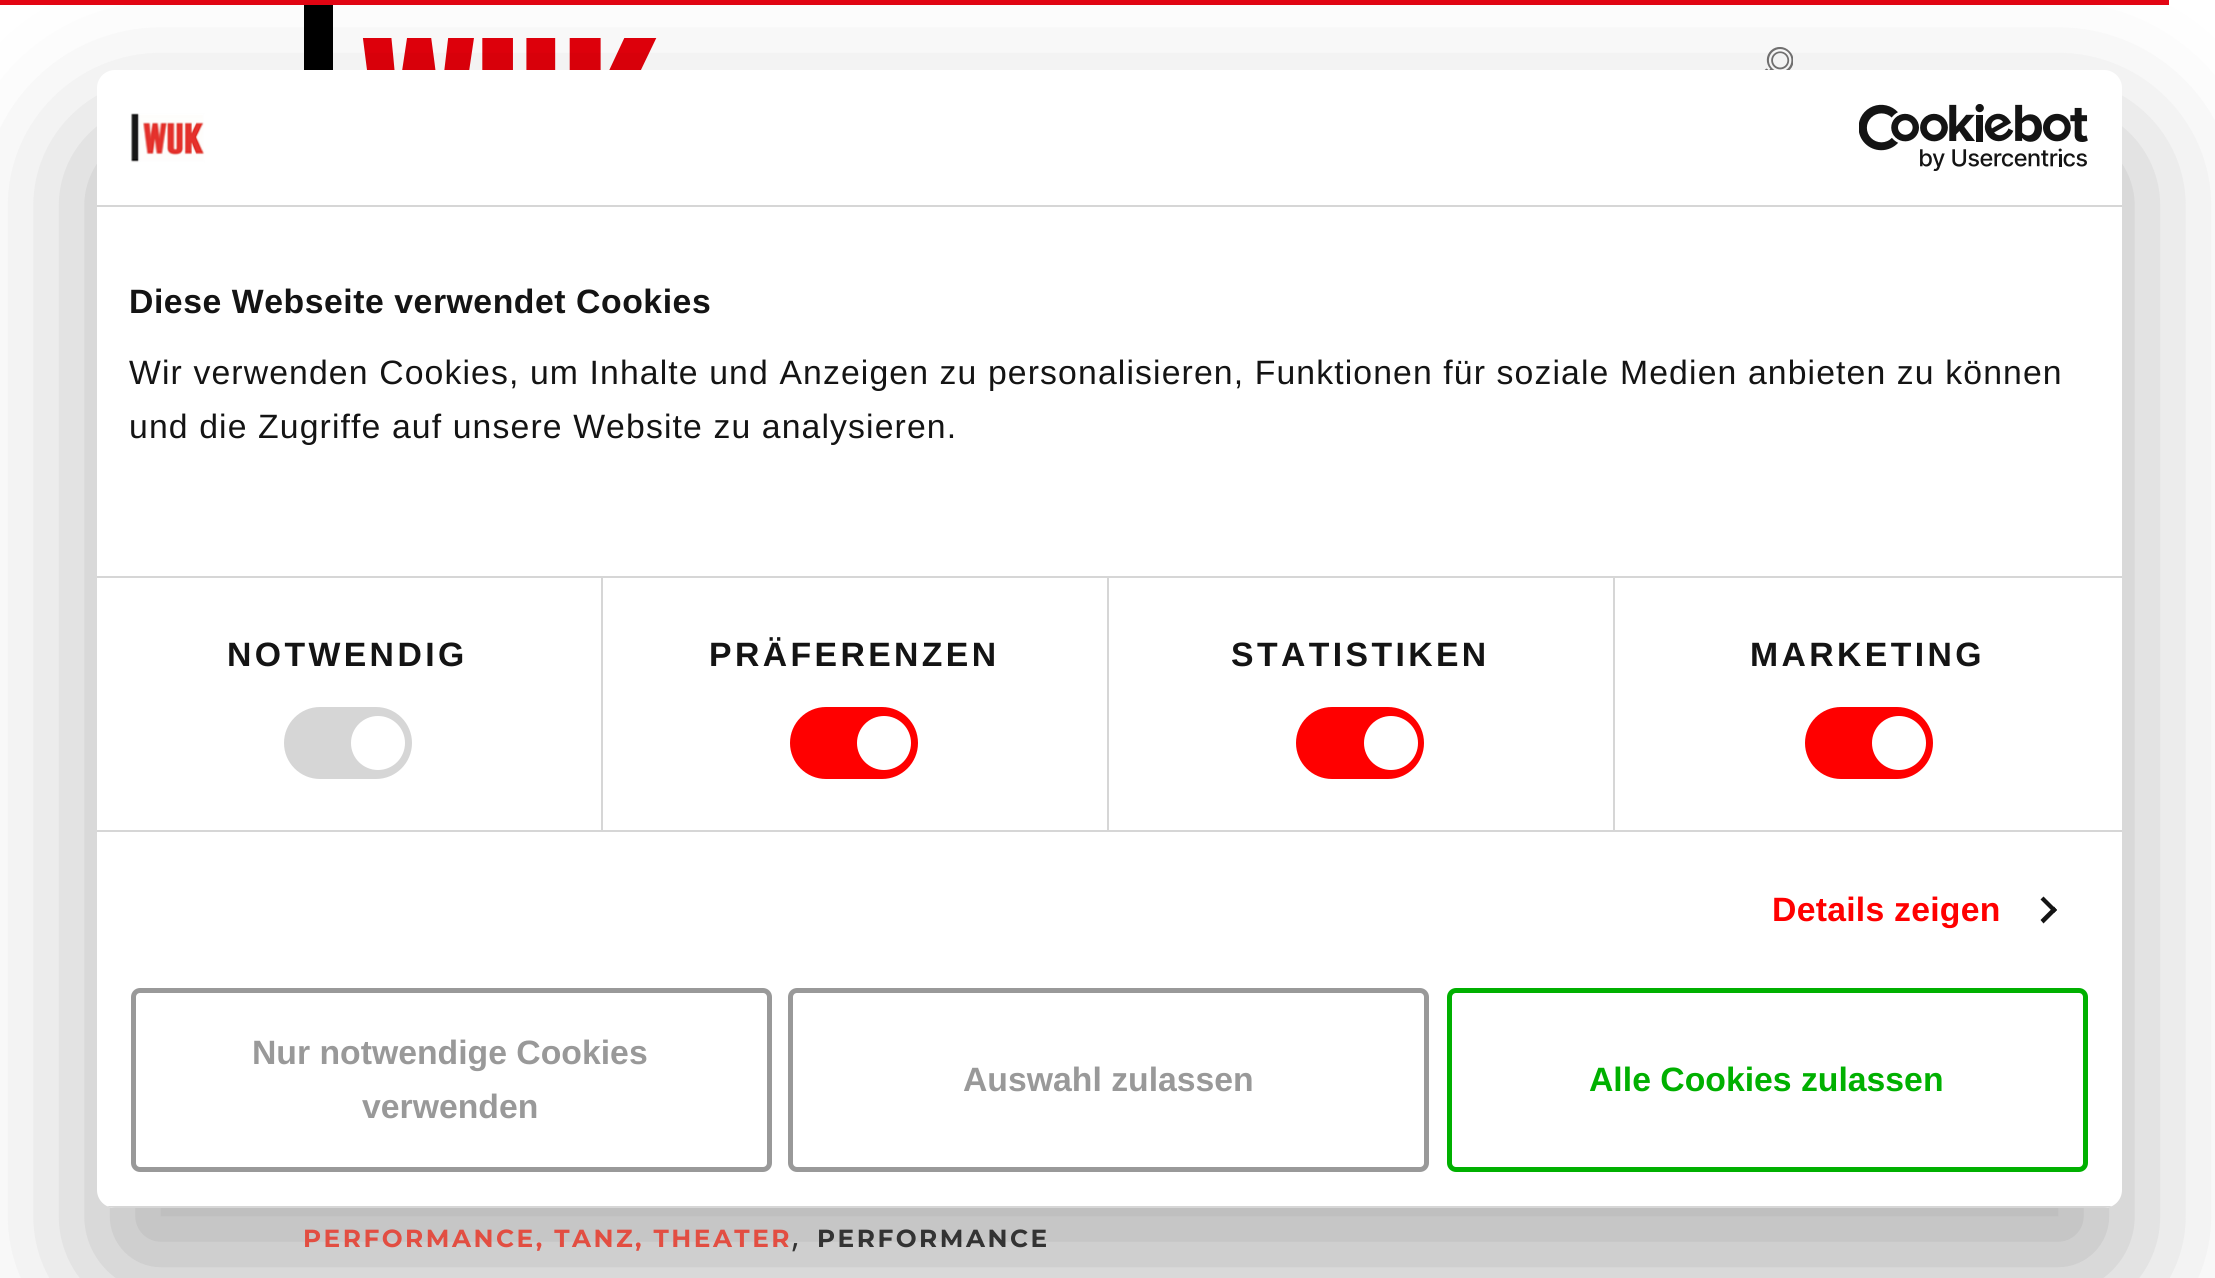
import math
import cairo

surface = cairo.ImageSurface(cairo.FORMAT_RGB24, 2215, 1278)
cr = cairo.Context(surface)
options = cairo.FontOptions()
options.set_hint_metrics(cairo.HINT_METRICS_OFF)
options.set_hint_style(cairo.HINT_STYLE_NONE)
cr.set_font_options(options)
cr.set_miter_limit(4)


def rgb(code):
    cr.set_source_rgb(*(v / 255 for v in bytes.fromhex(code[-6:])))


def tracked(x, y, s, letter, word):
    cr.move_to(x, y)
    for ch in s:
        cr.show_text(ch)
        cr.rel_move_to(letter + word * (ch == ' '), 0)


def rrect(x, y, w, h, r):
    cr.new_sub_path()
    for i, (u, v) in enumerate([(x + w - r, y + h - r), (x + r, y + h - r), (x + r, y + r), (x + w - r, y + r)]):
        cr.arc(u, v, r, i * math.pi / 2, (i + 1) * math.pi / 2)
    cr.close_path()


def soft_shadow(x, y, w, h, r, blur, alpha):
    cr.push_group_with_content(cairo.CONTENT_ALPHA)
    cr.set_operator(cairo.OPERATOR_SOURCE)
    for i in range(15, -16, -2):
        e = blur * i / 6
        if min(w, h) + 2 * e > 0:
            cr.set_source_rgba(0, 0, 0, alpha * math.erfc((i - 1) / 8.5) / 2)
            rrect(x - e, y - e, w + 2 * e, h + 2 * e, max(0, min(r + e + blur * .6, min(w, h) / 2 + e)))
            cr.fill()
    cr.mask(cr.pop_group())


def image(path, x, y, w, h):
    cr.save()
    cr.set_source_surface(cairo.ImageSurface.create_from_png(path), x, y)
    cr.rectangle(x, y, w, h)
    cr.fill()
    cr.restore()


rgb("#ffffff")
cr.paint()
rgb("#e30513")
cr.rectangle(0, 0, 2169, 5)
cr.fill()
image("img/3.png", 304, 5, 353, 65)
image("img/4.png", 1764, 47, 29, 23)
rgb("#000000")
soft_shadow(97, 142, 2025, 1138, 18, 76.5, 0.3)
rgb("#ffffff")
rrect(97, 70, 2025, 1138, 18)
cr.fill()
rgb("#d6d6d6")
cr.rectangle(97, 205, 2025, 2)
cr.fill()
image("img/1.png", 130, 113, 75, 50)
image("img/2.png", 1859, 104, 229, 67)
for x, y, w, h, color in [
    (97, 576, 2025, 2, "#d6d6d6"),
    (97, 830, 2025, 2, "#d6d6d6"),
    (601, 578, 2, 252, "#d6d6d6"),
]:
    rgb(color)
    cr.rectangle(x, y, w, h)
    cr.fill()
rrect(284, 707, 128, 72, 36)
cr.fill()
rgb("#ffffff")
cr.arc(378, 743, 27, 0, 2 * math.pi)
cr.fill()
rgb("#d6d6d6")
cr.rectangle(1107, 578, 2, 252)
cr.fill()
rgb("#ff0000")
rrect(790, 707, 128, 72, 36)
cr.fill()
rgb("#ffffff")
cr.arc(884, 743, 27, 0, 2 * math.pi)
cr.fill()
rgb("#d6d6d6")
cr.rectangle(1613, 578, 2, 252)
cr.fill()
rgb("#ff0000")
rrect(1296, 707, 128, 72, 36)
cr.fill()
rgb("#ffffff")
cr.arc(1391, 743, 27, 0, 2 * math.pi)
cr.fill()
rgb("#ff0000")
rrect(1805, 707, 128, 72, 36)
cr.fill()
rgb("#ffffff")
cr.arc(1899, 743, 27, 0, 2 * math.pi)
cr.fill()
rgb("#141414")
cr.new_path()
cr.move_to(2043.5, 896.5)
cr.line_to(2057, 910)
cr.line_to(2054, 913)
cr.line_to(2040.5, 899.5)
cr.close_path()
cr.fill()
cr.new_path()
cr.move_to(2054, 906.5)
cr.line_to(2057, 910)
cr.line_to(2043.5, 923.5)
cr.line_to(2040.5, 920)
cr.close_path()
cr.fill()
cr.save()
rrect(97, 70, 2025, 1138, 18)
cr.clip()
rgb("#d6d6d6")
cr.rectangle(107, 1206, 2005, 2)
cr.fill()
cr.restore()
rrect(133.5, 990.5, 636, 179, 6.5)
rgb("#999999")
cr.set_line_width(5)
cr.stroke()
rrect(790.5, 990.5, 636, 179, 6.5)
cr.stroke()
rrect(1449.5, 990.5, 636, 179, 6.5)
rgb("#00b000")
cr.stroke()
cr.select_font_face("Liberation Sans", cairo.FONT_SLANT_NORMAL, cairo.FONT_WEIGHT_BOLD)
cr.set_font_size(33.75)
rgb("#141414")
tracked(129, 313, "Diese Webseite verwendet Cookies", 0.55, 0)
cr.select_font_face("Liberation Sans")
tracked(129, 384, "Wir verwenden Cookies, um Inhalte und Anzeigen zu personalisieren, Funktionen für soziale Medien anbieten zu können", 1.12, 0)
tracked(129, 438, "und die Zugriffe auf unsere Website zu analysieren.", 1.12, 0)
cr.select_font_face("Liberation Sans", cairo.FONT_SLANT_NORMAL, cairo.FONT_WEIGHT_BOLD)
for x, y, s in [
    (227, 666, "NOTWENDIG"),
    (709, 666, "PRÄFERENZEN"),
    (1231, 666, "STATISTIKEN"),
    (1750, 666, "MARKETING"),
]:
    tracked(x, y, s, 3.4, 0)
rgb("#ff0000")
tracked(1772, 921, "Details zeigen", 0.25, 0)
rgb("#999999")
for x, y, s in [
    (252, 1064, "Nur notwendige Cookies"),
    (362, 1118, "verwenden"),
    (963, 1091, "Auswahl zulassen"),
]:
    cr.move_to(x, y)
    cr.show_text(s)
rgb("#00b000")
cr.move_to(1589, 1091)
cr.show_text("Alle Cookies zulassen")
cr.select_font_face("Montserrat Thin")
cr.set_font_size(24.75)
rgb("#e24e42")
tracked(303, 1247, "PERFORMANCE, TANZ, THEATER", 2.5, 0)
cr.select_font_face("Open Sans")
cr.set_font_size(33.75)
rgb("#333333")
cr.move_to(791, 1247)
cr.show_text(",")
cr.select_font_face("Montserrat Thin")
cr.set_font_size(24.75)
tracked(817, 1247, "PERFORMANCE", 2.5, 0)
surface.write_to_png("page.png")
